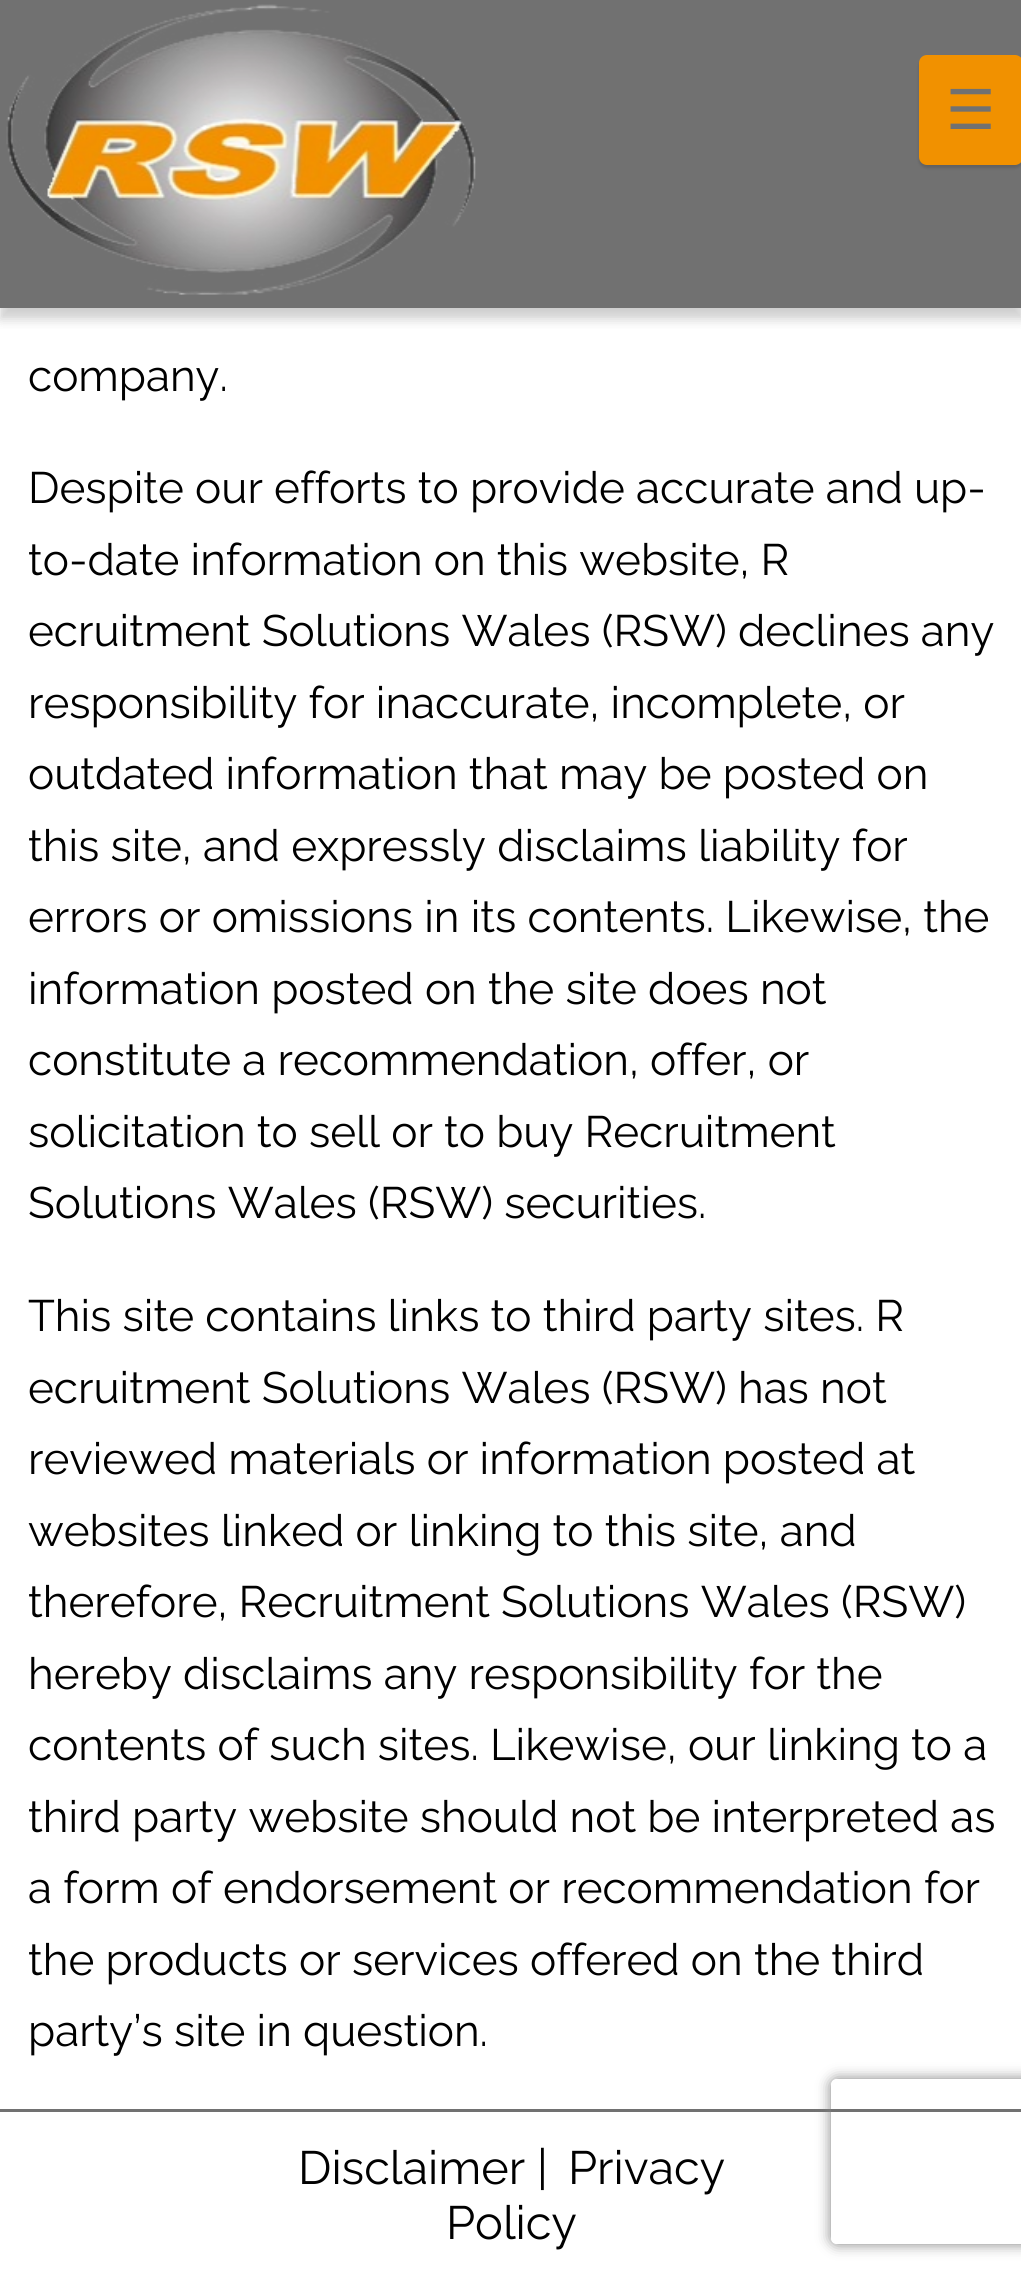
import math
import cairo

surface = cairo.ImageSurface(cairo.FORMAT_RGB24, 1021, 2281)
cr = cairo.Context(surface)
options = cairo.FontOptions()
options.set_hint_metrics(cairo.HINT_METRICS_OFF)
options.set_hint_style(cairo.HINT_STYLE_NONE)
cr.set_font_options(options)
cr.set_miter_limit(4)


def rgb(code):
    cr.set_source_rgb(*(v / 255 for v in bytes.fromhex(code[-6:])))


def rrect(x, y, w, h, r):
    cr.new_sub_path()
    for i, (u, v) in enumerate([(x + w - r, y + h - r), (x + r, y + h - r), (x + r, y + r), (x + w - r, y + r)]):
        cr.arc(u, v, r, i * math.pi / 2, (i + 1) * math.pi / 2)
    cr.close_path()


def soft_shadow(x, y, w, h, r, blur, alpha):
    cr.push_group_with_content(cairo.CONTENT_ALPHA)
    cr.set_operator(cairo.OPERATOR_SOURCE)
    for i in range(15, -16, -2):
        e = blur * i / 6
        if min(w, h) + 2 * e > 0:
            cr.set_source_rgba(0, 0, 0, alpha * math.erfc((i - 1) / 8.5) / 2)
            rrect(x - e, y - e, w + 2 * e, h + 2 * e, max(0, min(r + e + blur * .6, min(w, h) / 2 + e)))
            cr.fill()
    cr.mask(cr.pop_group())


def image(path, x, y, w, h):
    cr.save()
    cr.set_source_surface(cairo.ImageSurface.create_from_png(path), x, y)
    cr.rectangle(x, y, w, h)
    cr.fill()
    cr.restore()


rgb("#ffffff")
cr.paint()
rgb("#000000")
soft_shadow(0, 11, 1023, 308, 0, 5.5, 0.1)
soft_shadow(0, 11, 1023, 308, 0, 5.5, 0.1)
rgb("#717171")
cr.rectangle(0, 0, 1021, 308)
cr.fill()
image("img/1.png", 6, 4, 470, 291)
rgb("#000000")
soft_shadow(919, 58, 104, 110, 8, 1.5, 0.15)
rgb("#f19100")
rrect(919, 55, 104, 110, 8)
cr.fill()
rgb("#717171")
cr.rectangle(0, 2109, 1021, 3)
cr.fill()
cr.save()
cr.set_fill_rule(cairo.FILL_RULE_EVEN_ODD)
cr.new_path()
cr.move_to(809, 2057)
cr.line_to(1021, 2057)
cr.line_to(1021, 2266)
cr.line_to(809, 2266)
cr.close_path()
cr.move_to(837, 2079)
cr.line_to(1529, 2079)
cr.curve_to(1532.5, 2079, 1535, 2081.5, 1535, 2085)
cr.line_to(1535, 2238)
cr.curve_to(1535, 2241.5, 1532.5, 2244, 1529, 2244)
cr.line_to(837, 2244)
cr.curve_to(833.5, 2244, 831, 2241.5, 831, 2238)
cr.line_to(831, 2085)
cr.curve_to(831, 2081.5, 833.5, 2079, 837, 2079)
cr.close_path()
cr.clip()
rgb("#808080")
soft_shadow(831, 2079, 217, 165, 6, 7, 1)
cr.restore()
cr.select_font_face("DejaVu Sans")
cr.set_font_size(55)
cr.move_to(946, 129)
cr.show_text("☰")
cr.select_font_face("Raleway Thin")
cr.set_font_size(44)
rgb("#000000")
for x, y, s in [
    (28, 391, "company."),
    (28, 503, "Despite our efforts to provide accurate and up-"),
    (28, 575, "to-date information on this website, R"),
    (28, 646, "ecruitment Solutions Wales (RSW) declines any"),
    (28, 718, "responsibility for inaccurate, incomplete, or"),
    (28, 789, "outdated information that may be posted on"),
    (28, 861, "this site, and expressly disclaims liability for"),
    (28, 932, "errors or omissions in its contents. Likewise, the"),
    (28, 1004, "information posted on the site does not"),
    (28, 1075, "constitute a recommendation, offer, or"),
    (28, 1147, "solicitation to sell or to buy Recruitment"),
    (28, 1218, "Solutions Wales (RSW) securities."),
    (28, 1331, "This site contains links to third party sites. R"),
    (28, 1403, "ecruitment Solutions Wales (RSW) has not"),
    (28, 1474, "reviewed materials or information posted at"),
    (28, 1546, "websites linked or linking to this site, and"),
    (28, 1617, "therefore, Recruitment Solutions Wales (RSW)"),
    (28, 1689, "hereby disclaims any responsibility for the"),
    (28, 1760, "contents of such sites. Likewise, our linking to a"),
    (28, 1832, "third party website should not be interpreted as"),
    (28, 1903, "a form of endorsement or recommendation for"),
    (28, 1975, "the products or services offered on the third"),
    (28, 2046, "party’s site in question."),
]:
    cr.move_to(x, y)
    cr.show_text(s)
cr.set_font_size(46.75)
for x, y, s in [
    (298, 2184, "Disclaimer |"),
    (568, 2184, "Privacy"),
    (446, 2239, "Policy"),
]:
    cr.move_to(x, y)
    cr.show_text(s)
surface.write_to_png("page.png")
